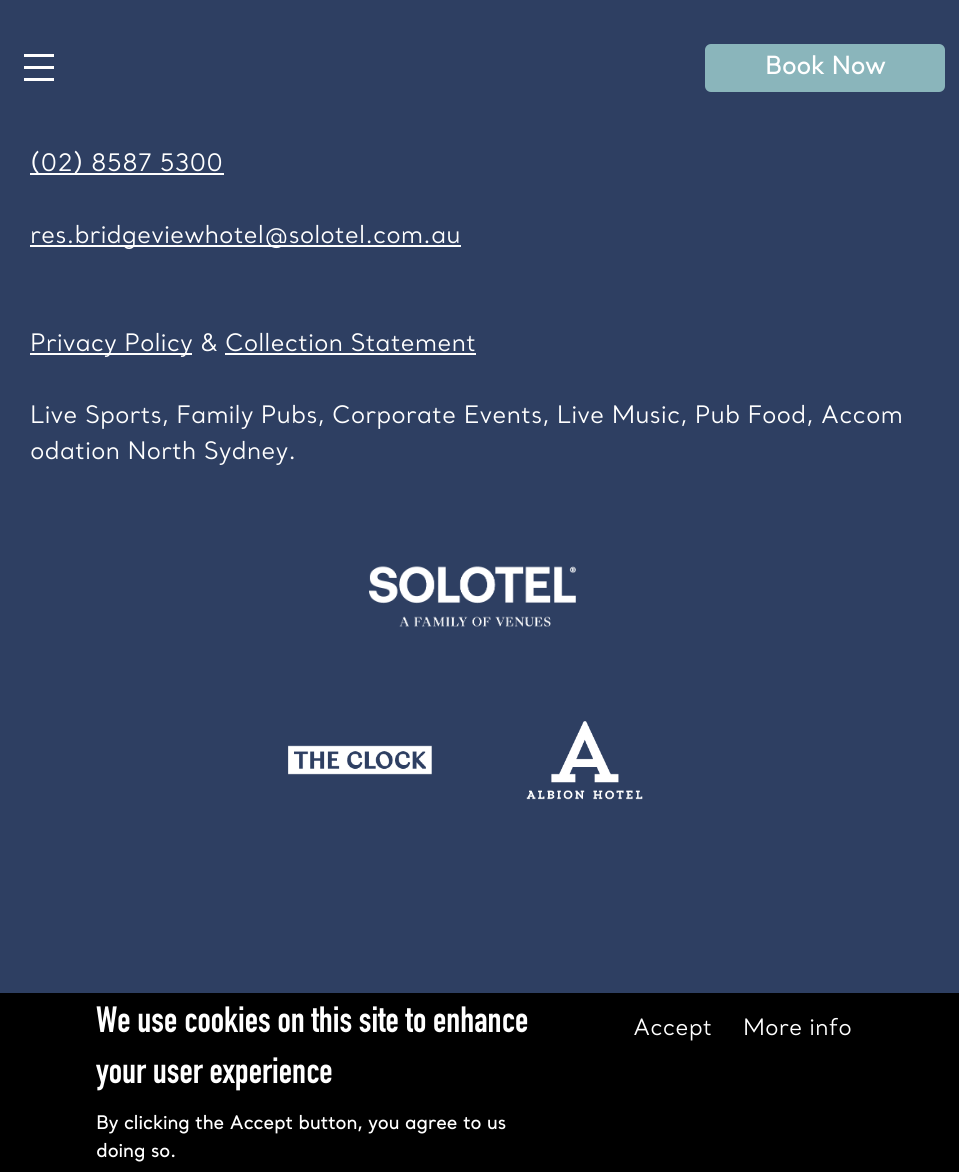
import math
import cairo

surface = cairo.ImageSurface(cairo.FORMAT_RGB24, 959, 1172)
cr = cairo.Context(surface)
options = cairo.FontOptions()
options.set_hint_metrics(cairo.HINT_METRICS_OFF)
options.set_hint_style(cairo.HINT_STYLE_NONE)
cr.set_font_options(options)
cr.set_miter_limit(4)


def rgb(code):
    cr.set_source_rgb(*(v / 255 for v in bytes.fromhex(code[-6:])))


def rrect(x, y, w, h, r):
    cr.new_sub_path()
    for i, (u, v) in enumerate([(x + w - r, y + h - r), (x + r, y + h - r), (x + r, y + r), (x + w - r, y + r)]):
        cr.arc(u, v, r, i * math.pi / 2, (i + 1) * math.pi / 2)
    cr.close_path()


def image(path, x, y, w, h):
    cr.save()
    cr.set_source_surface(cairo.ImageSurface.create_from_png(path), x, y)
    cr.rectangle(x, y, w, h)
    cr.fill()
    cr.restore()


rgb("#2e3f62")
cr.paint()
for x, y, w, h, color in [
    (24, 54, 30, 3, "#ffffff"),
    (24, 66, 30, 3, "#ffffff"),
    (24, 78, 30, 3, "#ffffff"),
]:
    rgb(color)
    cr.rectangle(x, y, w, h)
    cr.fill()
rgb("#8ab5bb")
rrect(705, 44, 240, 48, 6)
cr.fill()
for x, y, w, h, color in [
    (30, 173, 194, 2, "#ffffff"),
    (30, 245, 431, 2, "#ffffff"),
    (30, 353, 162, 2, "#ffffff"),
    (225, 353, 251, 2, "#ffffff"),
]:
    rgb(color)
    cr.rectangle(x, y, w, h)
    cr.fill()
image("img/1.png", 369, 566, 207, 61)
image("img/2.png", 288, 745, 144, 30)
image("img/3.png", 526, 721, 117, 79)
rgb("#000000")
cr.rectangle(0, 993, 959, 179)
cr.fill()
cr.select_font_face("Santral", cairo.FONT_SLANT_NORMAL, cairo.FONT_WEIGHT_BOLD)
cr.set_font_size(24)
rgb("#ffffff")
cr.move_to(765, 74)
cr.show_text("Book Now")
cr.select_font_face("Santral")
for x, y, s in [
    (30, 171, "(02) 8587 5300"),
    (30, 243, "res.bridgeviewhotel@solotel.com.au"),
    (30, 351, "Privacy Policy & Collection Statement"),
    (30, 423, "Live Sports, Family Pubs, Corporate Events, Live Music, Pub Food, Accom"),
    (30, 459, "odation North Sydney."),
]:
    cr.move_to(x, y)
    cr.show_text(s)
cr.select_font_face("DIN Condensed", cairo.FONT_SLANT_NORMAL, cairo.FONT_WEIGHT_BOLD)
cr.set_font_size(36)
cr.move_to(96, 1032)
cr.show_text("We use cookies on this site to enhance")
cr.move_to(96, 1083)
cr.show_text("your user experience")
cr.select_font_face("Santral", cairo.FONT_SLANT_NORMAL, cairo.FONT_WEIGHT_BOLD)
cr.set_font_size(18)
cr.move_to(96, 1129)
cr.show_text("By clicking the Accept button, you agree to us")
cr.move_to(96, 1157)
cr.show_text("doing so.")
cr.select_font_face("Santral")
cr.set_font_size(22.5)
cr.move_to(633, 1035)
cr.show_text("Accept")
cr.move_to(743, 1035)
cr.show_text("More info")
surface.write_to_png("page.png")
